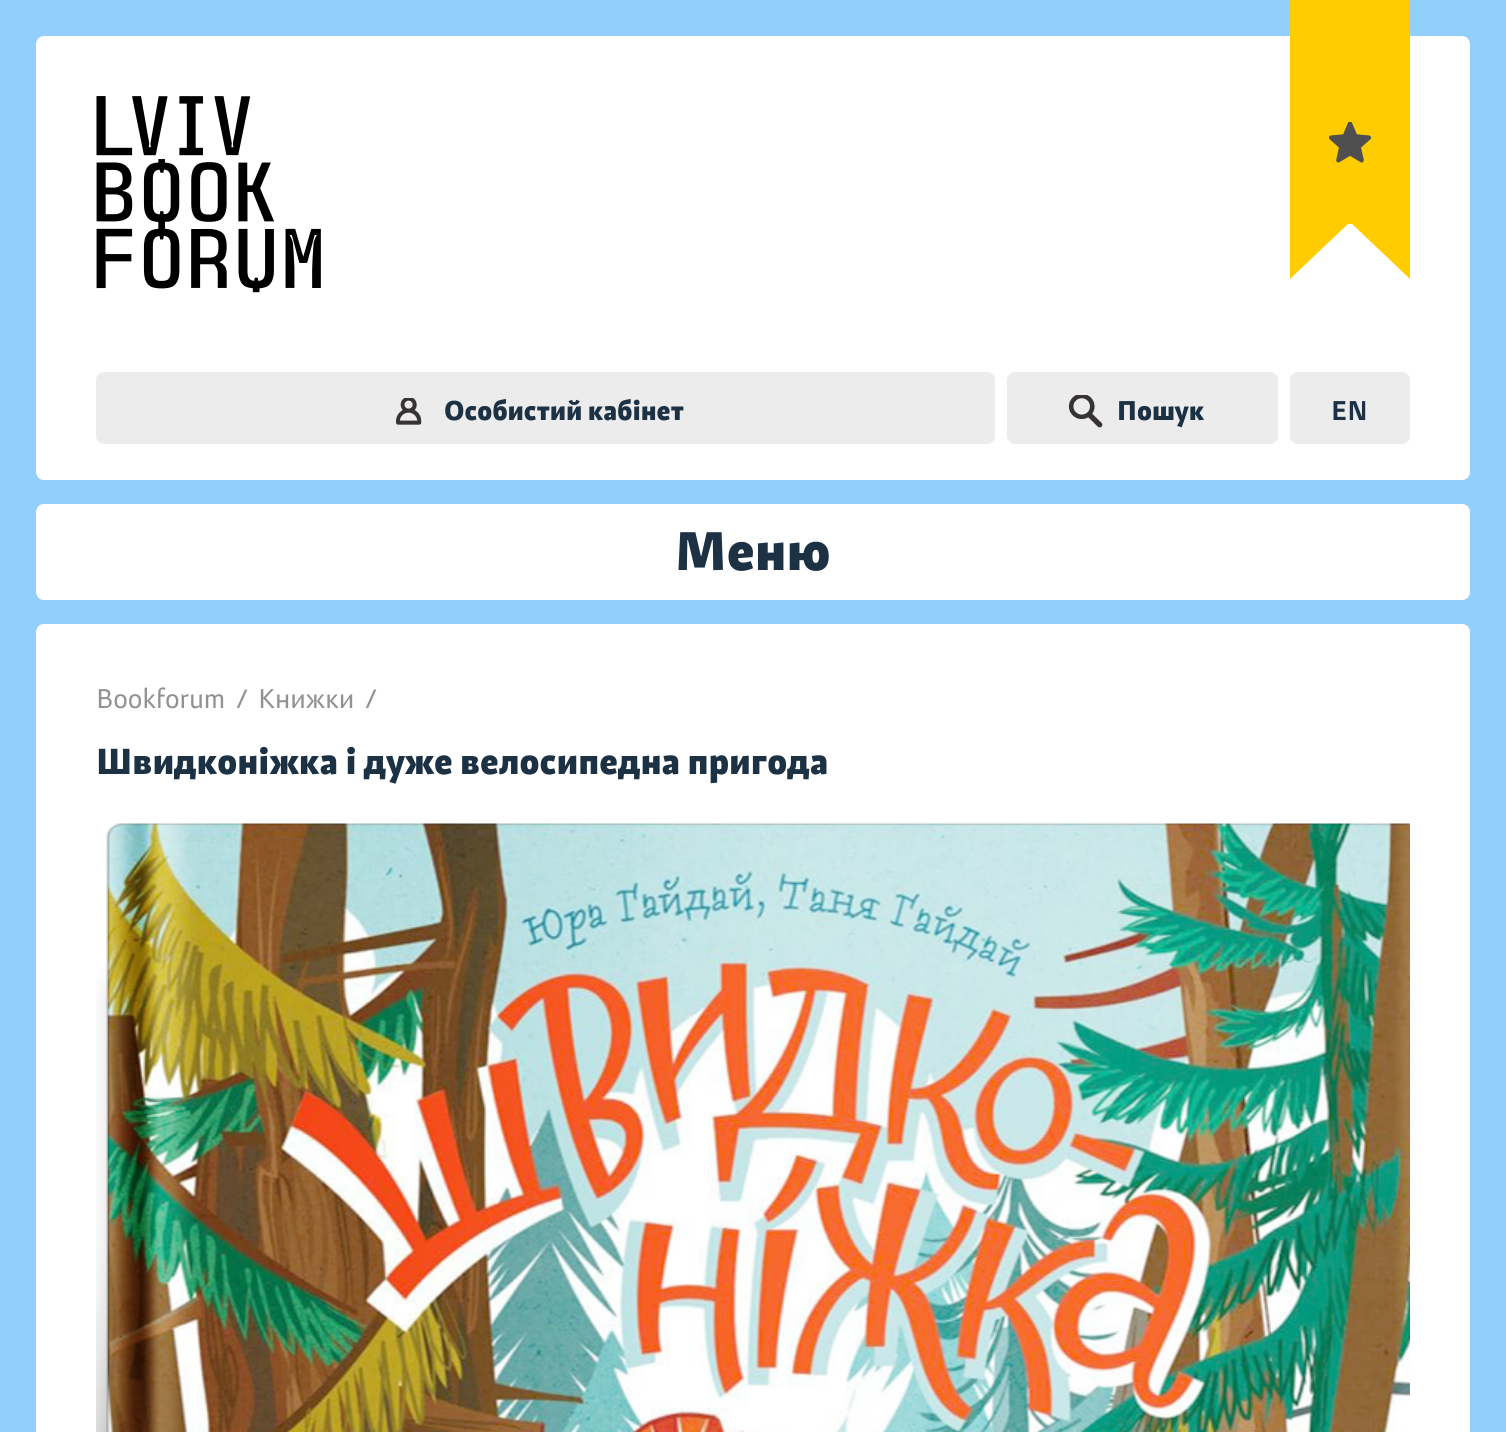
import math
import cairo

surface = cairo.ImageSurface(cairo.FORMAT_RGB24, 1506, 1432)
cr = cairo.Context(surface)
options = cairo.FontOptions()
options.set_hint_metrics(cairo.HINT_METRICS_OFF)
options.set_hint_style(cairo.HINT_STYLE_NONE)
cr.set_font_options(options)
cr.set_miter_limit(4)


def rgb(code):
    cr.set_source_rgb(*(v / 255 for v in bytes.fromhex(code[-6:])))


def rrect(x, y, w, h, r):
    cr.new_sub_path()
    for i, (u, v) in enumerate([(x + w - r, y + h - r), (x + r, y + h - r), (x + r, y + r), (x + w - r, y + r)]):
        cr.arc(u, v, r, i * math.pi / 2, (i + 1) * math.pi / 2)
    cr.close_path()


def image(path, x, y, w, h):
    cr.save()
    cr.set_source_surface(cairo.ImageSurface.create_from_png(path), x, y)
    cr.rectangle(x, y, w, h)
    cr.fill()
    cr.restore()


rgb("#92cffc")
cr.paint()
rgb("#ffffff")
rrect(36, 36, 1434, 444, 8)
cr.fill()
image("img/1.png", 96, 96, 225, 197)
rgb("#ffcc00")
cr.rectangle(1290, 0, 120, 224)
cr.fill()
cr.new_path()
cr.move_to(1410, 222)
cr.line_to(1410, 279)
cr.line_to(1350, 222)
cr.close_path()
cr.fill()
cr.new_path()
cr.move_to(1290, 279)
cr.line_to(1290, 222)
cr.line_to(1350, 222)
cr.close_path()
cr.fill()
image("img/2.png", 1329, 122, 42, 41)
rgb("#ececec")
rrect(96, 372, 899, 72, 8)
cr.fill()
image("img/3.png", 396, 398, 26, 27)
rrect(1007, 372, 271, 72, 8)
cr.fill()
image("img/4.png", 1068, 395, 35, 33)
rrect(1290, 372, 120, 72, 8)
cr.fill()
rgb("#ffffff")
rrect(36, 504, 1434, 96, 8)
cr.fill()
rrect(36, 624, 1434, 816, 8)
cr.fill()
image("img/5.png", 96, 823, 1314, 609)
cr.select_font_face("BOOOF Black")
cr.set_font_size(27)
rgb("#1c3244")
cr.move_to(444, 420)
cr.show_text("Особистий кабінет")
cr.move_to(1117, 420)
cr.show_text("Пошук")
cr.select_font_face("BOOOF", cairo.FONT_SLANT_NORMAL, cairo.FONT_WEIGHT_BOLD)
cr.move_to(1331, 420)
cr.show_text("EN")
cr.select_font_face("BOOOF Black")
cr.set_font_size(54)
cr.move_to(675, 570)
cr.show_text("Меню")
cr.select_font_face("BOOOF")
cr.set_font_size(27)
rgb("#929292")
for x, y, s in [
    (96, 708, "Bookforum"),
    (237, 708, "/"),
    (258, 708, "Книжки"),
    (366, 708, "/"),
]:
    cr.move_to(x, y)
    cr.show_text(s)
cr.select_font_face("BOOOF Black")
cr.set_font_size(36)
rgb("#1c3244")
cr.move_to(96, 774)
cr.show_text("Швидконіжка і дуже велосипедна пригода")
surface.write_to_png("page.png")
